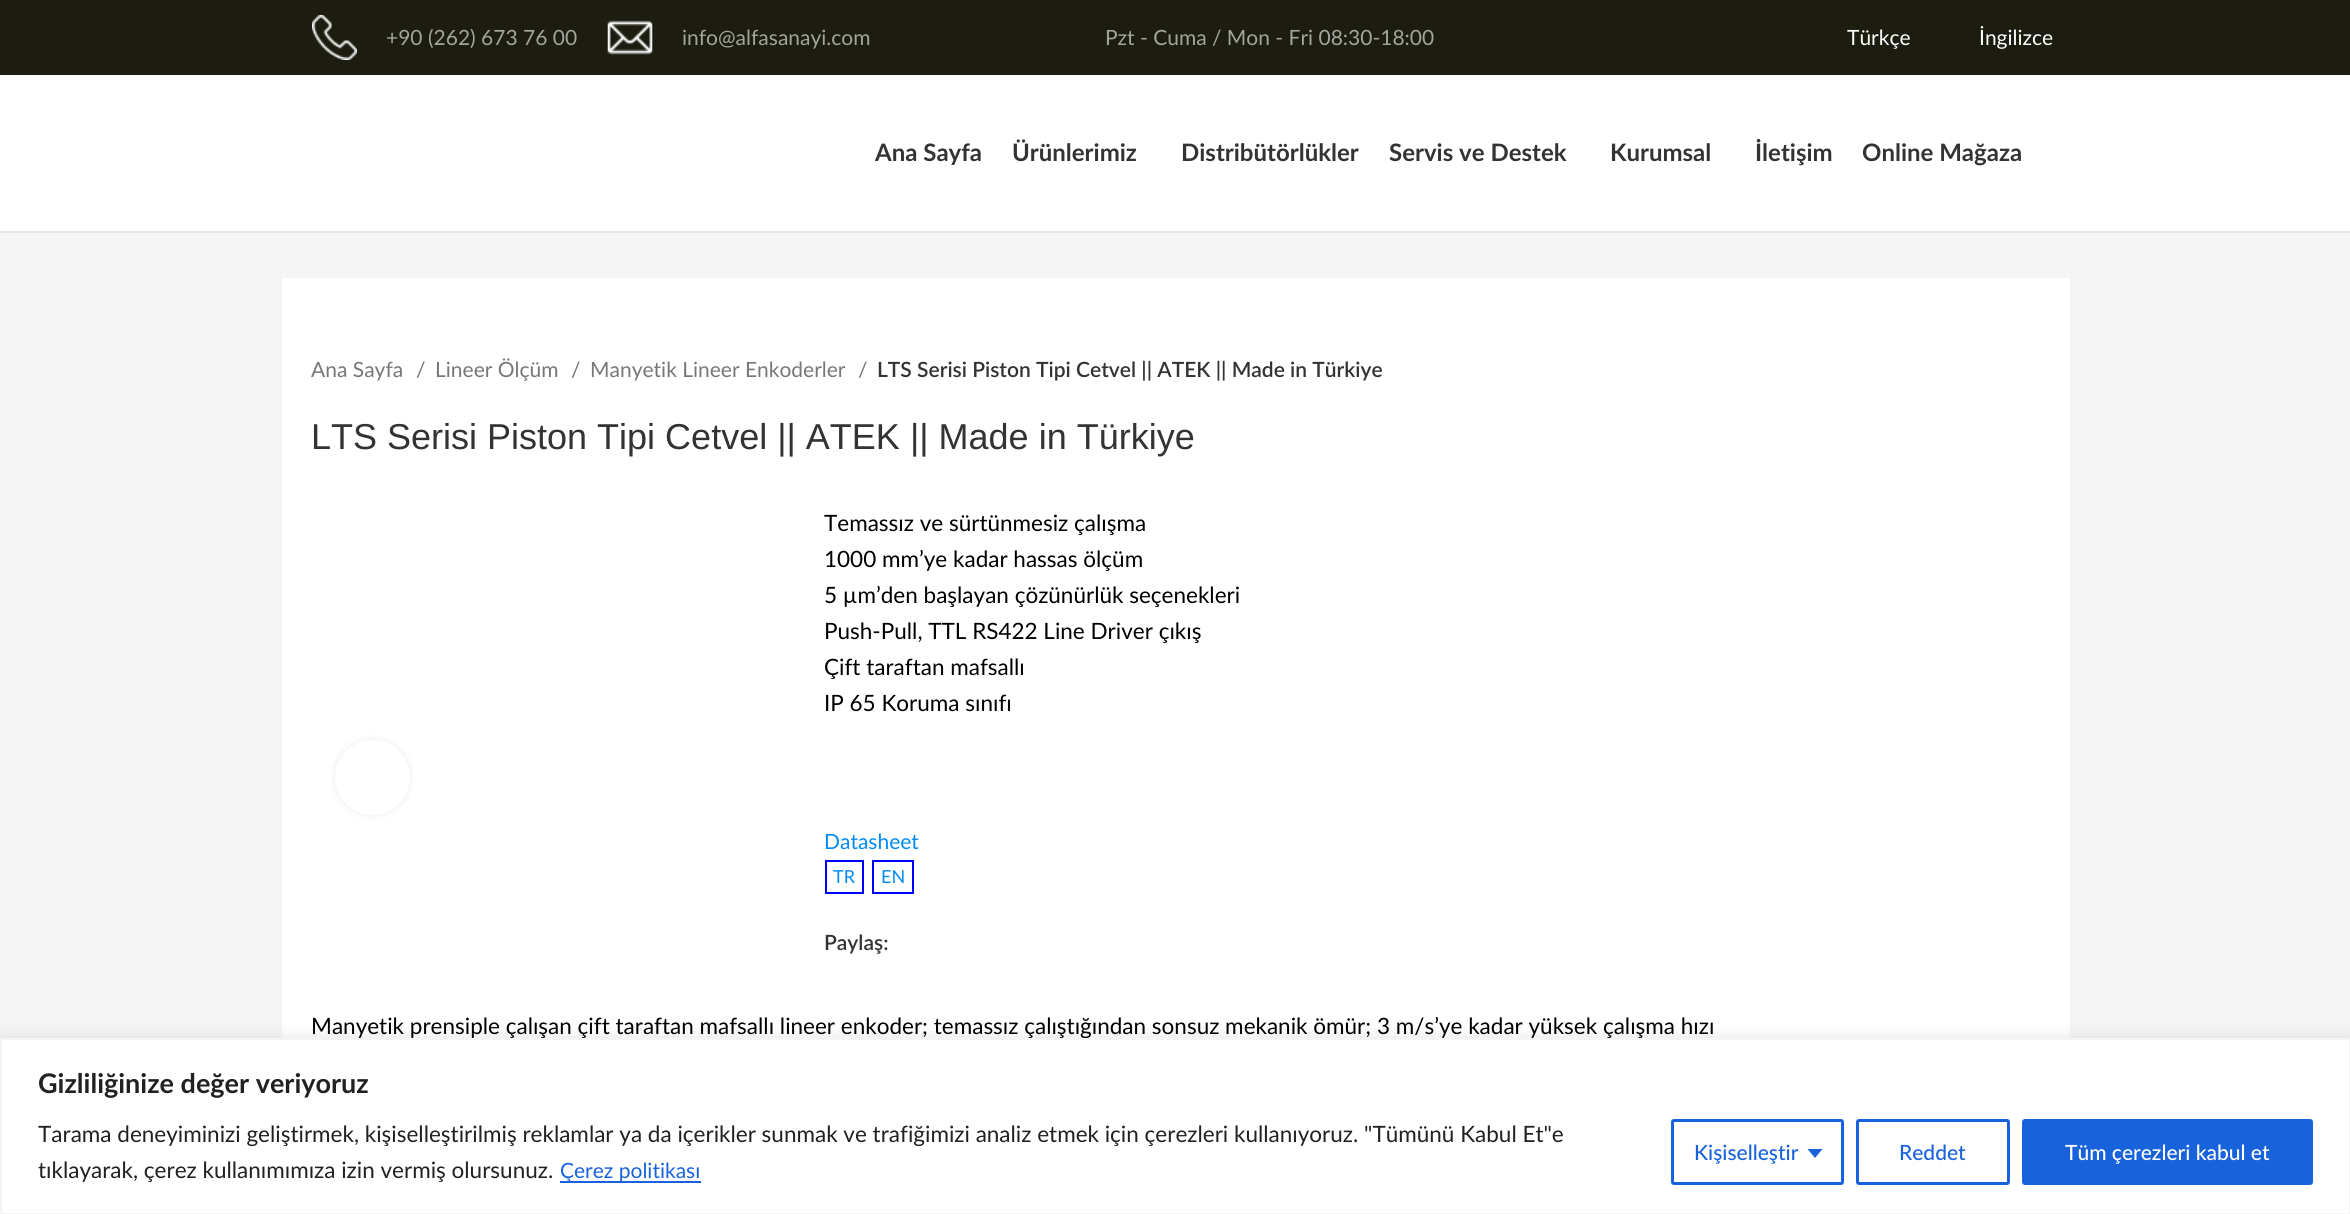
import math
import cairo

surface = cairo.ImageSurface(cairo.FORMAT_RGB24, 2350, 1214)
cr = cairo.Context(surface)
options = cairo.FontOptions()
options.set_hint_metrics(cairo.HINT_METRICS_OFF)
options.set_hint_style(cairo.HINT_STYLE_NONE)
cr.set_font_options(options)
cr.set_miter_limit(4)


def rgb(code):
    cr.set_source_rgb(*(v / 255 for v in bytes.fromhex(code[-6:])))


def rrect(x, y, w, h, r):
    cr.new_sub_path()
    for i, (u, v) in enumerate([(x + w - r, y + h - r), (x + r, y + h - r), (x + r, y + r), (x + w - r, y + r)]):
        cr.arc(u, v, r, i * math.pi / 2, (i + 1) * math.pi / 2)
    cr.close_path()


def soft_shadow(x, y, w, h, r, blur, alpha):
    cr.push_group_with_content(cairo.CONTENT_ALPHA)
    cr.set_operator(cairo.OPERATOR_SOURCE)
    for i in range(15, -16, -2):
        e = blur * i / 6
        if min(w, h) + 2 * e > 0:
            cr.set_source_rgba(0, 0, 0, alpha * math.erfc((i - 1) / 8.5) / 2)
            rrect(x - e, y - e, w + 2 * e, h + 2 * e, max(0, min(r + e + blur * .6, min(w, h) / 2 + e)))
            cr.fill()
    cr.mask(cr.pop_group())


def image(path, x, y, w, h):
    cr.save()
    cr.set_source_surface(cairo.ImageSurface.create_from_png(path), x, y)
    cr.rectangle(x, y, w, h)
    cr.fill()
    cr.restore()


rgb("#ffffff")
cr.paint()
rgb("#1c1c10")
cr.rectangle(0, 0, 2350, 75)
cr.fill()
image("img/1.png", 312, 15, 45, 45)
image("img/2.png", 607, 20, 46, 35)
for x, y, w, h, color in [
    (0, 231, 2350, 2, "#e6e6e6"),
    (0, 233, 2350, 805, "#f5f5f5"),
    (282, 278, 1788, 760, "#ffffff"),
]:
    rgb(color)
    cr.rectangle(x, y, w, h)
    cr.fill()
rgb("#000000")
soft_shadow(335, 740, 75, 75, 37.5, 4, 0.08)
rgb("#ffffff")
cr.arc(372.5, 777.5, 37.5, 0, 2 * math.pi)
cr.fill()
cr.rectangle(826, 861, 37, 32)
rgb("#0000ff")
cr.stroke()
cr.rectangle(873, 861, 40, 32)
cr.stroke()
rgb("#acabab")
soft_shadow(0, 1037, 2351, 177, 0, 7.5, 0.3)
cr.select_font_face("Lato")
cr.set_font_size(21)
rgb("#a4a49f")
for x, y, s in [
    (386, 45, "+90 (262) 673 76 00"),
    (682, 45, "info@alfasanayi.com"),
    (1105, 45, "Pzt - Cuma / Mon - Fri 08:30-18:00"),
]:
    cr.move_to(x, y)
    cr.show_text(s)
rgb("#ffffff")
cr.move_to(1847, 45)
cr.show_text("Türkçe")
cr.move_to(1979, 45)
cr.show_text("İngilizce")
cr.select_font_face("Lato", cairo.FONT_SLANT_NORMAL, cairo.FONT_WEIGHT_BOLD)
cr.set_font_size(24)
rgb("#333333")
for x, y, s in [
    (875, 161, "Ana Sayfa"),
    (1012, 161, "Ürünlerimiz"),
    (1181, 161, "Distribütörlükler"),
    (1389, 161, "Servis ve Destek"),
    (1610, 161, "Kurumsal"),
    (1755, 161, "İletişim"),
    (1862, 161, "Online Mağaza"),
]:
    cr.move_to(x, y)
    cr.show_text(s)
cr.select_font_face("Lato")
cr.set_font_size(21)
rgb("#777777")
for x, y, s in [
    (311, 377, "Ana Sayfa"),
    (416, 377, "/"),
    (435, 377, "Lineer Ölçüm"),
    (571, 377, "/"),
    (590, 377, "Manyetik Lineer Enkoderler"),
    (858, 377, "/"),
]:
    cr.move_to(x, y)
    cr.show_text(s)
cr.select_font_face("Lato SemiBold")
rgb("#333333")
cr.move_to(877, 377)
cr.show_text("LTS Serisi Piston Tipi Cetvel || ATEK || Made in Türkiye")
cr.select_font_face("Liberation Sans")
cr.set_font_size(36)
cr.move_to(311, 449)
cr.show_text("LTS Serisi Piston Tipi Cetvel || ATEK || Made in Türkiye")
cr.select_font_face("Lato")
cr.set_font_size(22.5)
rgb("#000000")
for x, y, s in [
    (824, 531, "Temassız ve sürtünmesiz çalışma"),
    (824, 567, "1000 mm’ye kadar hassas ölçüm"),
    (824, 603, "5 µm’den başlayan çözünürlük seçenekleri"),
    (824, 639, "Push-Pull, TTL RS422 Line Driver çıkış"),
    (824, 675, "Çift taraftan mafsallı"),
    (824, 711, "IP 65 Koruma sınıfı"),
]:
    cr.move_to(x, y)
    cr.show_text(s)
cr.set_font_size(21)
rgb("#018bf4")
cr.move_to(824, 849)
cr.show_text("Datasheet")
cr.set_font_size(18)
cr.move_to(833, 883)
cr.show_text("TR")
cr.move_to(881, 883)
cr.show_text("EN")
cr.select_font_face("Lato SemiBold")
cr.set_font_size(21)
rgb("#333333")
cr.move_to(824, 950)
cr.show_text("Paylaş:")
cr.select_font_face("Lato")
cr.set_font_size(22.5)
rgb("#000000")
cr.move_to(311, 1034)
cr.show_text("Manyetik prensiple çalışan çift taraftan mafsallı lineer enkoder; temassız çalıştığından sonsuz mekanik ömür; 3 m/s’ye kadar yüksek çalışma hızı")
rgb("#ffffff")
cr.rectangle(1, 1039, 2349, 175)
cr.fill_preserve()
rgb("#f4f4f4")
cr.stroke()
cr.select_font_face("Lato", cairo.FONT_SLANT_NORMAL, cairo.FONT_WEIGHT_BOLD)
cr.set_font_size(27)
rgb("#212121")
cr.move_to(38, 1093)
cr.show_text("Gizliliğinize değer veriyoruz")
cr.select_font_face("Lato")
cr.set_font_size(22.5)
cr.move_to(38, 1142)
cr.show_text("Tarama deneyiminizi geliştirmek, kişiselleştirilmiş reklamlar ya da içerikler sunmak ve trafiğimizi analiz etmek için çerezleri kullanıyoruz. \"Tümünü Kabul Et\"e")
cr.move_to(38, 1178)
cr.show_text("tıklayarak, çerez kullanımımıza izin vermiş olursunuz.")
rgb("#1863dc")
cr.rectangle(560, 1181, 141, 2)
cr.fill()
cr.set_font_size(21)
cr.move_to(560, 1178)
cr.show_text("Çerez politikası")
rrect(1672.5, 1120.5, 170, 63, 1.5)
cr.set_line_width(3)
cr.stroke()
cr.select_font_face("Lato Medium")
cr.move_to(1694, 1160)
cr.show_text("Kişiselleştir")
cr.new_path()
cr.move_to(1807.5, 1149)
cr.line_to(1822.5, 1149)
cr.line_to(1815, 1158)
cr.close_path()
cr.fill()
rrect(1857.5, 1120.5, 151, 63, 1.5)
cr.stroke()
cr.move_to(1899, 1160)
cr.show_text("Reddet")
rrect(2023.5, 1120.5, 288, 63, 1.5)
cr.fill_preserve()
cr.stroke()
rgb("#ffffff")
cr.move_to(2065, 1160)
cr.show_text("Tüm çerezleri kabul et")
surface.write_to_png("page.png")
